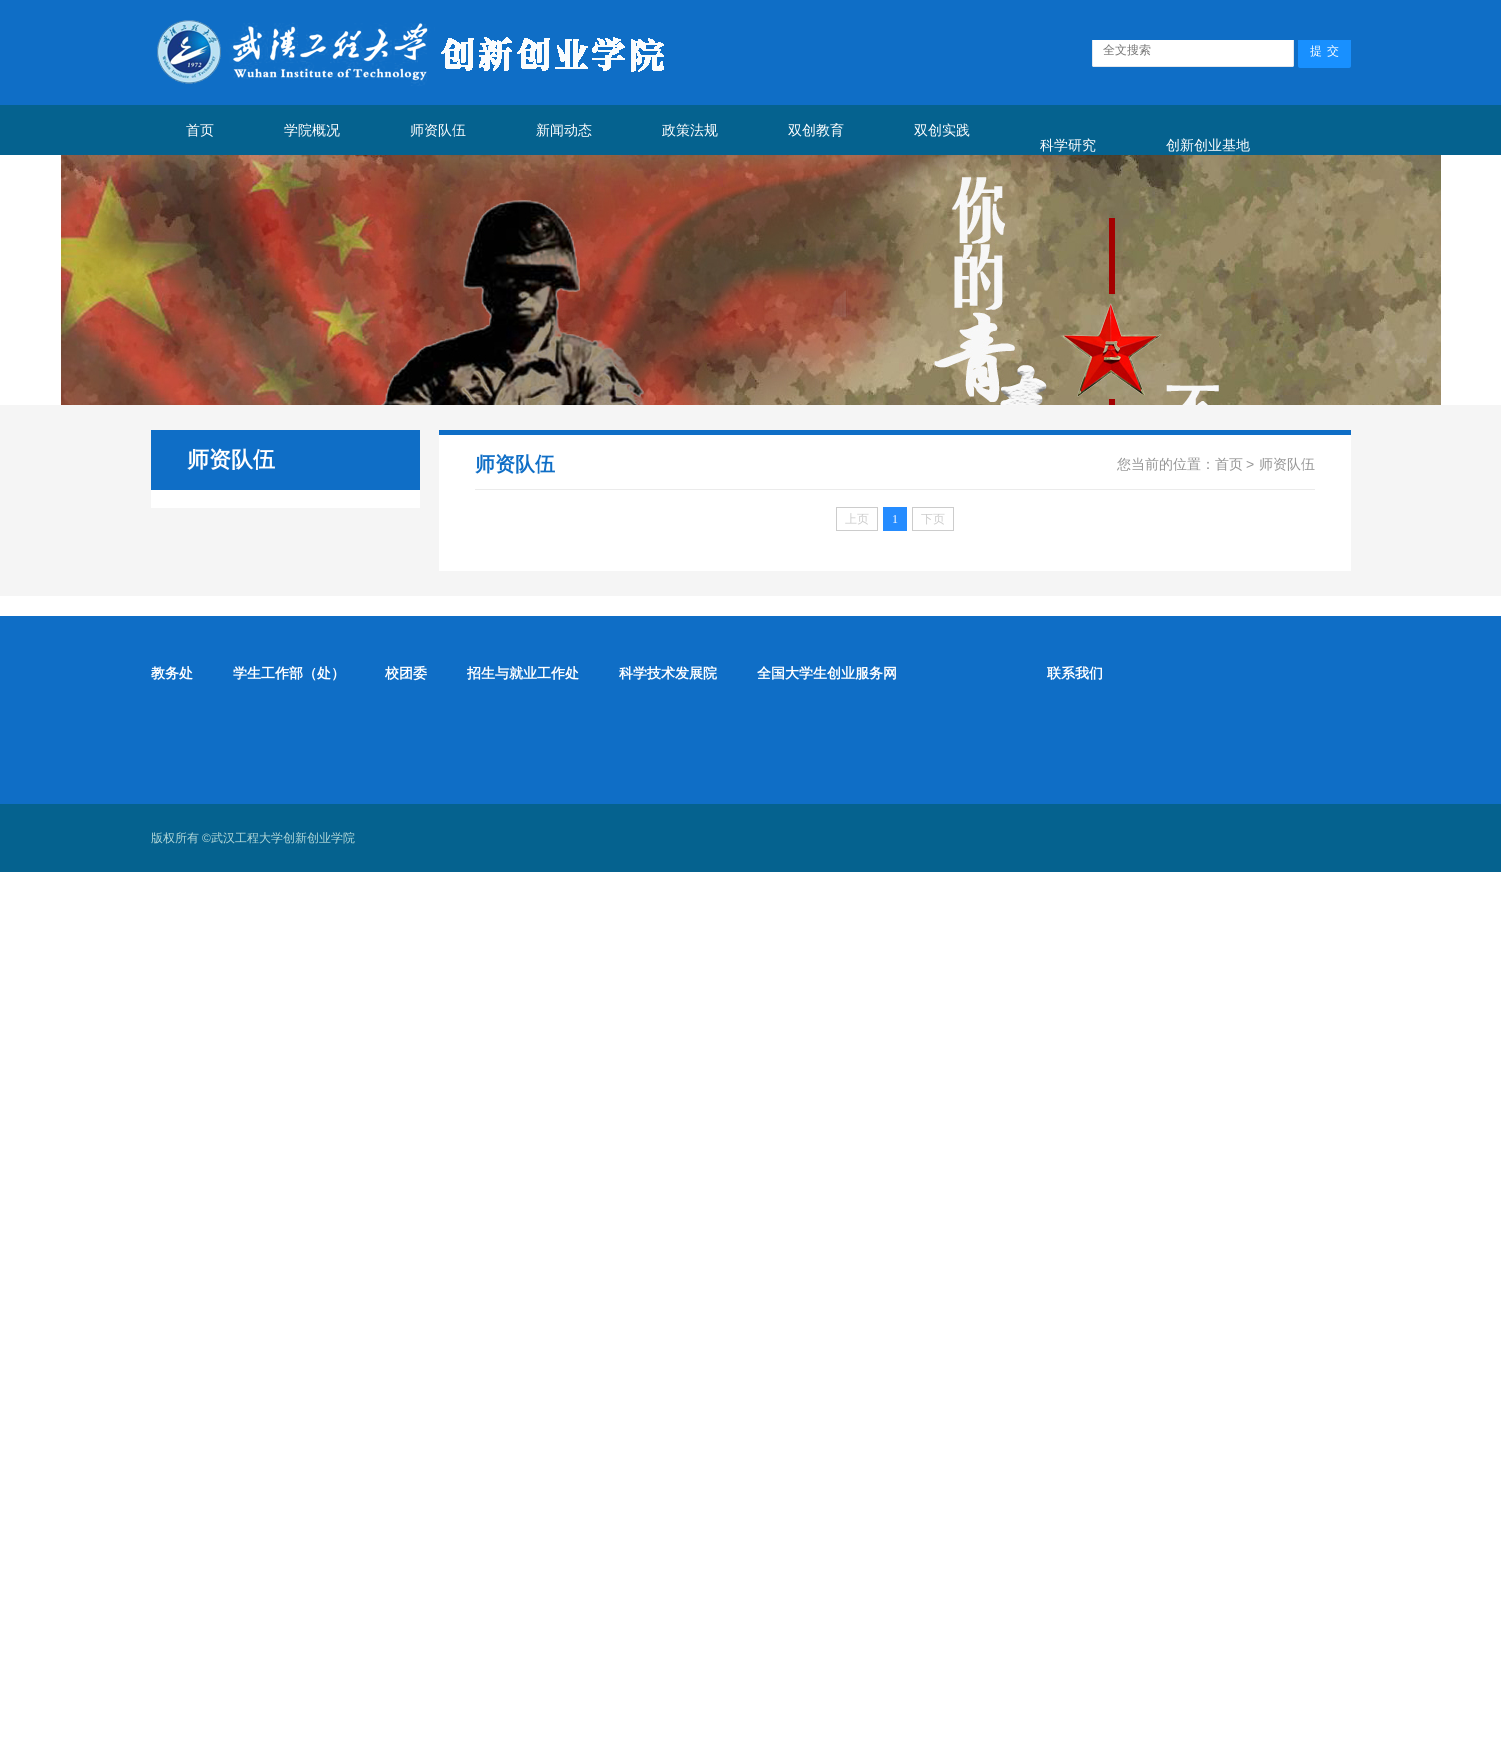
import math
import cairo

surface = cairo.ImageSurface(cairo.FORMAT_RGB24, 1501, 1754)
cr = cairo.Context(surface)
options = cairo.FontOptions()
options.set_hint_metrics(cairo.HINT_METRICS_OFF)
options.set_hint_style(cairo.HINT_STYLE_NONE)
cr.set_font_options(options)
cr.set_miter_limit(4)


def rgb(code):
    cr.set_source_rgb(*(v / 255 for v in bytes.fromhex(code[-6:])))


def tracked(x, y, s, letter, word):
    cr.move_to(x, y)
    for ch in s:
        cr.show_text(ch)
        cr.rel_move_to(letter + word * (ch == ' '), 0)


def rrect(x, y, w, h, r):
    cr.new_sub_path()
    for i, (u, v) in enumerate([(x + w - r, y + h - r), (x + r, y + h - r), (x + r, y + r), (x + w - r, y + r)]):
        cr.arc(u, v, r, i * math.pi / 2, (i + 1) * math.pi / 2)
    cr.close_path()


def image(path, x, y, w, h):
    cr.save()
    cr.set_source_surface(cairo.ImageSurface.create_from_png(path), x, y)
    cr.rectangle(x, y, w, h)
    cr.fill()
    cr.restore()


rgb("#ffffff")
cr.paint()
rgb("#0f6ec6")
cr.rectangle(0, 0, 1501, 105)
cr.fill()
image("img/1.png", 157, 20, 507, 66)
rgb("#ffffff")
cr.new_path()
cr.move_to(1092, 40)
cr.line_to(1294, 40)
cr.line_to(1294, 65)
cr.curve_to(1294, 66, 1293, 67, 1292, 67)
cr.line_to(1094, 67)
cr.curve_to(1093, 67, 1092, 66, 1092, 65)
cr.close_path()
cr.fill()
cr.save()
cr.rectangle(1092, 40, 259, 40)
cr.clip()
rrect(1092.5, 34.5, 201, 32, 1.5)
rgb("#e4e7ed")
cr.set_line_width(1)
cr.stroke()
cr.restore()
rgb("#1890ff")
cr.new_path()
cr.move_to(1298, 40)
cr.line_to(1351, 40)
cr.line_to(1351, 66)
cr.curve_to(1351, 67, 1350, 68, 1349, 68)
cr.line_to(1300, 68)
cr.curve_to(1299, 68, 1298, 67, 1298, 66)
cr.close_path()
cr.fill()
rgb("#05628f")
cr.rectangle(0, 105, 1501, 50)
cr.fill()
image("img/2.png", 61, 155, 1380, 250)
for x, y, w, h, color in [
    (0, 405, 1501, 191, "#f5f5f5"),
    (151, 490, 269, 18, "#ffffff"),
    (151, 430, 269, 60, "#0f6ec6"),
    (439, 435, 912, 136, "#ffffff"),
    (439, 430, 912, 5, "#0f6ec6"),
    (475, 489, 840, 1, "#ebebeb"),
]:
    rgb(color)
    cr.rectangle(x, y, w, h)
    cr.fill()
cr.rectangle(836.5, 507.5, 41, 23)
rgb("#cccccc")
cr.set_line_width(1)
cr.stroke()
rgb("#258cff")
cr.rectangle(883, 507, 24, 24)
cr.fill()
cr.rectangle(912.5, 507.5, 41, 23)
rgb("#cccccc")
cr.stroke()
rgb("#0f6ec6")
cr.rectangle(0, 616, 1501, 188)
cr.fill()
rgb("#05628f")
cr.rectangle(0, 804, 1501, 68)
cr.fill()
cr.select_font_face("WenQuanYi Zen Hei Medium")
cr.set_font_size(12)
rgb("#757575")
cr.move_to(1103, 54)
cr.show_text("全文搜索")
rgb("#ffffff")
tracked(1310, 55, "提交", 5, 0)
cr.set_font_size(14)
for x, y, s in [
    (186, 135, "首页"),
    (284, 135, "学院概况"),
    (410, 135, "师资队伍"),
    (536, 135, "新闻动态"),
    (662, 135, "政策法规"),
    (788, 135, "双创教育"),
    (914, 135, "双创实践"),
    (1040, 150, "科学研究"),
    (1166, 150, "创新创业基地"),
]:
    cr.move_to(x, y)
    cr.show_text(s)
cr.select_font_face("WenQuanYi Zen Hei", cairo.FONT_SLANT_NORMAL, cairo.FONT_WEIGHT_BOLD)
cr.set_font_size(22)
cr.move_to(187, 467)
cr.show_text("师资队伍")
cr.set_font_size(20)
rgb("#0f6ec6")
cr.move_to(475, 471)
cr.show_text("师资队伍")
cr.select_font_face("WenQuanYi Zen Hei Medium")
cr.set_font_size(14)
rgb("#949494")
cr.move_to(1117, 469)
cr.show_text("您当前的位置：首页")
cr.select_font_face("Liberation Sans")
cr.move_to(1246, 469)
cr.show_text(">")
cr.select_font_face("WenQuanYi Zen Hei Medium")
cr.move_to(1259, 469)
cr.show_text("师资队伍")
cr.set_font_size(12)
rgb("#cccccc")
cr.move_to(845, 523)
cr.show_text("上页")
cr.select_font_face("Liberation Serif")
rgb("#ffffff")
cr.move_to(892, 523)
cr.show_text("1")
cr.select_font_face("WenQuanYi Zen Hei Medium")
rgb("#cccccc")
cr.move_to(921, 523)
cr.show_text("下页")
cr.select_font_face("WenQuanYi Zen Hei", cairo.FONT_SLANT_NORMAL, cairo.FONT_WEIGHT_BOLD)
cr.set_font_size(14)
rgb("#ffffff")
for x, y, s in [
    (151, 678, "教务处"),
    (233, 678, "学生工作部（处）"),
    (385, 678, "校团委"),
]:
    cr.move_to(x, y)
    cr.show_text(s)
cr.save()
cr.rectangle(467, 662, 152, 32)
cr.clip()
cr.move_to(467, 678)
cr.show_text("招生与就业工作处")
cr.restore()
cr.move_to(619, 678)
cr.show_text("科学技术发展院")
cr.move_to(757, 678)
cr.show_text("全国大学生创业服务网")
cr.save()
cr.rectangle(1047, 662, 198, 32)
cr.clip()
cr.move_to(1047, 678)
cr.show_text("联系我们")
cr.restore()
cr.select_font_face("WenQuanYi Zen Hei Medium")
cr.set_font_size(12)
rgb("#b3d8d8")
cr.move_to(151, 842)
cr.show_text("版权所有")
cr.select_font_face("Liberation Sans")
cr.move_to(202, 842)
cr.show_text("©")
cr.select_font_face("WenQuanYi Zen Hei Medium")
cr.move_to(211, 842)
cr.show_text("武汉工程大学创新创业学院")
surface.write_to_png("page.png")
